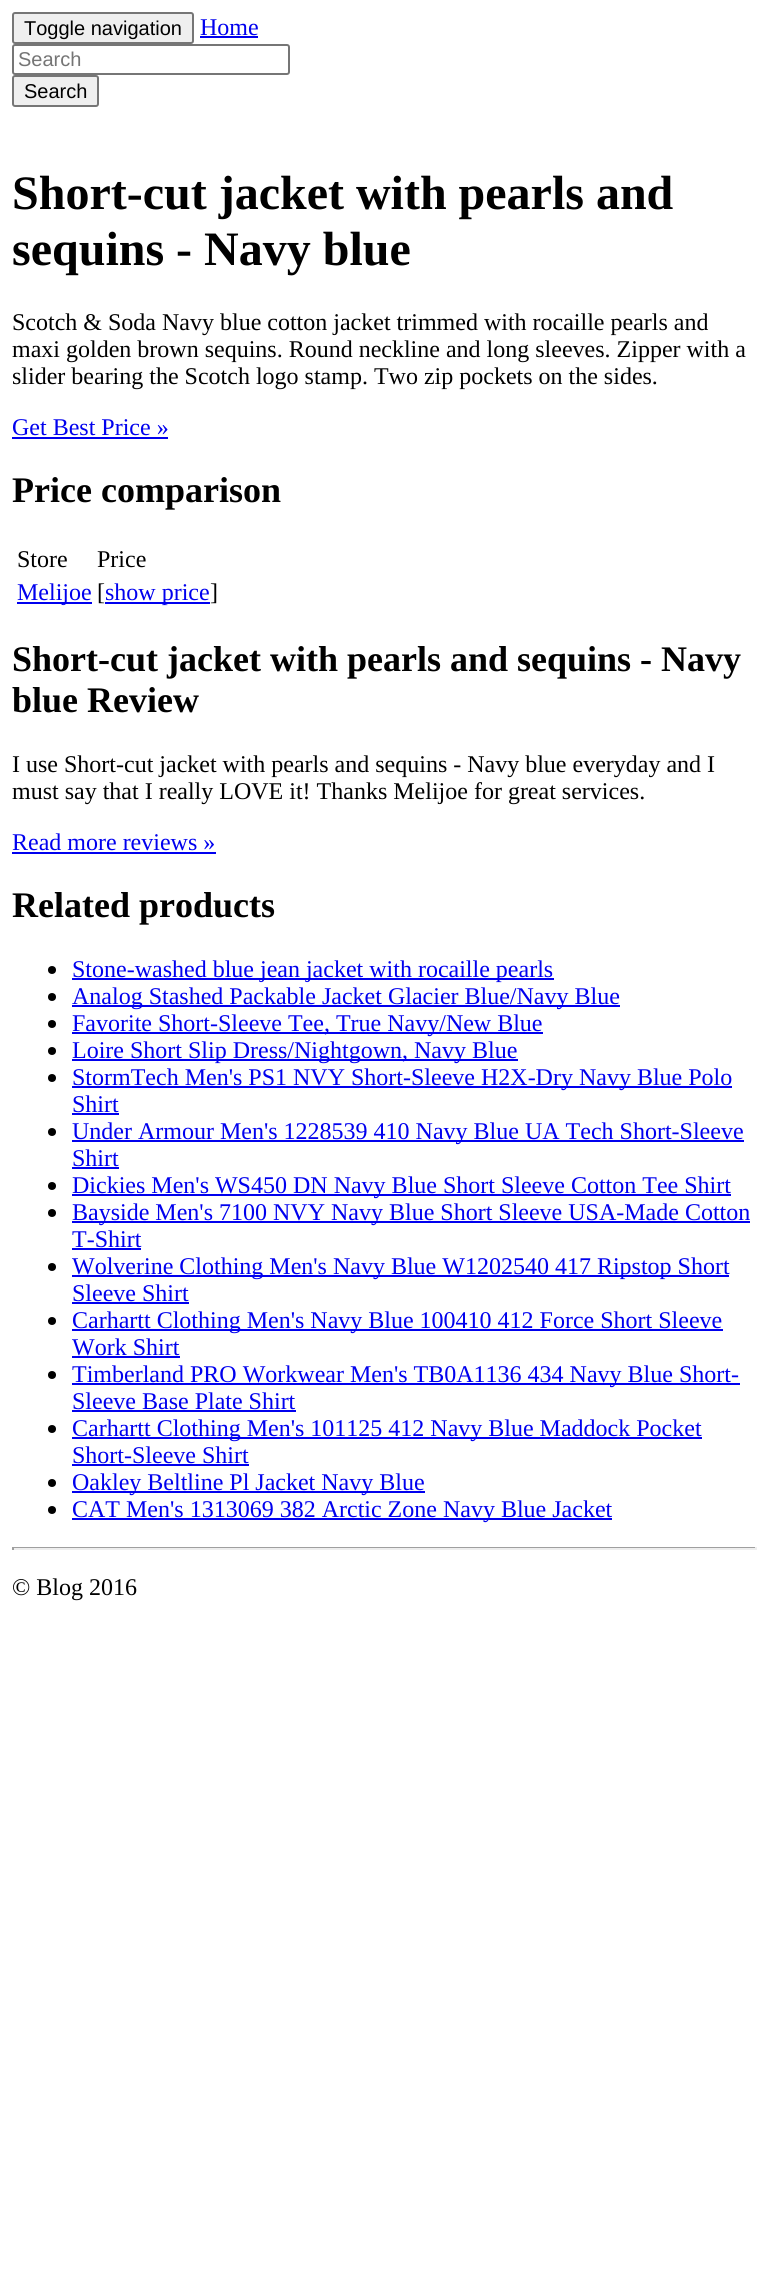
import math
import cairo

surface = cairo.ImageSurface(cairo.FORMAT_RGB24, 767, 2276)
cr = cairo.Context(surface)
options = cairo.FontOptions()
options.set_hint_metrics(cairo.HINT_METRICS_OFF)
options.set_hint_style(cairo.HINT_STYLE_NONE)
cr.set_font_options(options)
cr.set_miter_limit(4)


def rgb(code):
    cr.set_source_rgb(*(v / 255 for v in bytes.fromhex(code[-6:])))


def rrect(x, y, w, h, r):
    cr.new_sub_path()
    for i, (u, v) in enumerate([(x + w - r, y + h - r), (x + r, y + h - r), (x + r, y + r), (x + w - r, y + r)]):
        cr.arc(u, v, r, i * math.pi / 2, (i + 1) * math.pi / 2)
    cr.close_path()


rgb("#ffffff")
cr.paint()
rgb("#efefef")
rrect(13, 13, 180, 30, 2)
cr.fill_preserve()
rgb("#767676")
cr.stroke()
rgb("#0000ee")
cr.rectangle(200, 36, 58, 2)
cr.fill()
rrect(13, 45, 276, 29, 2)
rgb("#767676")
cr.stroke()
rgb("#efefef")
rrect(13, 76, 85, 30, 2)
cr.fill_preserve()
rgb("#767676")
cr.stroke()
for x, y, w, h, color in [
    (12, 437, 156, 2, "#0000ee"),
    (17, 602, 75, 2, "#0000ee"),
    (105, 602, 105, 2, "#0000ee"),
    (12, 852, 204, 2, "#0000ee"),
]:
    rgb(color)
    cr.rectangle(x, y, w, h)
    cr.fill()
rgb("#000000")
cr.arc(52, 970, 4, 0, 2 * math.pi)
cr.fill()
rgb("#0000ee")
cr.rectangle(72, 978, 482, 2)
cr.fill()
rgb("#000000")
cr.arc(52, 997, 4, 0, 2 * math.pi)
cr.fill()
rgb("#0000ee")
cr.rectangle(72, 1005, 548, 2)
cr.fill()
rgb("#000000")
cr.arc(52, 1024, 4, 0, 2 * math.pi)
cr.fill()
rgb("#0000ee")
cr.rectangle(72, 1032, 471, 2)
cr.fill()
rgb("#000000")
cr.arc(52, 1051, 4, 0, 2 * math.pi)
cr.fill()
rgb("#0000ee")
cr.rectangle(72, 1059, 446, 2)
cr.fill()
rgb("#000000")
cr.arc(52, 1078, 4, 0, 2 * math.pi)
cr.fill()
rgb("#0000ee")
cr.rectangle(72, 1086, 660, 2)
cr.fill()
cr.rectangle(72, 1113, 47, 2)
cr.fill()
rgb("#000000")
cr.arc(52, 1132, 4, 0, 2 * math.pi)
cr.fill()
rgb("#0000ee")
cr.rectangle(72, 1140, 672, 2)
cr.fill()
cr.rectangle(72, 1167, 47, 2)
cr.fill()
rgb("#000000")
cr.arc(52, 1186, 4, 0, 2 * math.pi)
cr.fill()
rgb("#0000ee")
cr.rectangle(72, 1194, 659, 2)
cr.fill()
rgb("#000000")
cr.arc(52, 1213, 4, 0, 2 * math.pi)
cr.fill()
rgb("#0000ee")
cr.rectangle(72, 1221, 678, 2)
cr.fill()
cr.rectangle(72, 1248, 69, 2)
cr.fill()
rgb("#000000")
cr.arc(52, 1267, 4, 0, 2 * math.pi)
cr.fill()
rgb("#0000ee")
cr.rectangle(72, 1275, 657, 2)
cr.fill()
cr.rectangle(72, 1302, 117, 2)
cr.fill()
rgb("#000000")
cr.arc(52, 1321, 4, 0, 2 * math.pi)
cr.fill()
rgb("#0000ee")
cr.rectangle(72, 1329, 651, 2)
cr.fill()
cr.rectangle(72, 1356, 108, 2)
cr.fill()
rgb("#000000")
cr.arc(52, 1375, 4, 0, 2 * math.pi)
cr.fill()
rgb("#0000ee")
cr.rectangle(72, 1383, 668, 2)
cr.fill()
cr.rectangle(72, 1410, 224, 2)
cr.fill()
rgb("#000000")
cr.arc(52, 1429, 4, 0, 2 * math.pi)
cr.fill()
rgb("#0000ee")
cr.rectangle(72, 1437, 630, 2)
cr.fill()
cr.rectangle(72, 1464, 177, 2)
cr.fill()
rgb("#000000")
cr.arc(52, 1483, 4, 0, 2 * math.pi)
cr.fill()
rgb("#0000ee")
cr.rectangle(72, 1491, 353, 2)
cr.fill()
rgb("#000000")
cr.arc(52, 1510, 4, 0, 2 * math.pi)
cr.fill()
for x, y, w, h, color in [
    (72, 1518, 540, 2, "#0000ee"),
    (12, 1547, 744, 1, "#9f9f9f"),
    (755, 1547, 2, 3, "#eeeeee"),
    (12, 1548, 744, 2, "#eeeeee"),
    (12, 1547, 2, 3, "#9f9f9f"),
]:
    rgb(color)
    cr.rectangle(x, y, w, h)
    cr.fill()
cr.select_font_face("Liberation Sans")
cr.set_font_size(20)
rgb("#000000")
cr.move_to(24, 35)
cr.show_text("Toggle navigation")
cr.select_font_face("Liberation Serif")
cr.set_font_size(24)
rgb("#0000ee")
cr.move_to(200, 35)
cr.show_text("Home")
cr.select_font_face("Liberation Sans")
cr.set_font_size(20)
rgb("#757575")
cr.move_to(18, 66)
cr.show_text("Search")
rgb("#000000")
cr.move_to(24, 98)
cr.show_text("Search")
cr.select_font_face("Liberation Serif", cairo.FONT_SLANT_NORMAL, cairo.FONT_WEIGHT_BOLD)
cr.set_font_size(48)
cr.move_to(12, 209)
cr.show_text("Short-cut jacket with pearls and")
cr.move_to(12, 265)
cr.show_text("sequins - Navy blue")
cr.select_font_face("Liberation Serif")
cr.set_font_size(24)
for x, y, s in [
    (12, 330, "Scotch & Soda Navy blue cotton jacket trimmed with rocaille pearls and"),
    (12, 357, "maxi golden brown sequins. Round neckline and long sleeves. Zipper with a"),
    (12, 384, "slider bearing the Scotch logo stamp. Two zip pockets on the sides."),
]:
    cr.move_to(x, y)
    cr.show_text(s)
rgb("#0000ee")
cr.move_to(12, 435)
cr.show_text("Get Best Price »")
cr.select_font_face("Liberation Serif", cairo.FONT_SLANT_NORMAL, cairo.FONT_WEIGHT_BOLD)
cr.set_font_size(36)
rgb("#000000")
cr.move_to(12, 502)
cr.show_text("Price comparison")
cr.select_font_face("Liberation Serif")
cr.set_font_size(24)
cr.move_to(17, 567)
cr.show_text("Store")
cr.move_to(97, 567)
cr.show_text("Price")
rgb("#0000ee")
cr.move_to(17, 600)
cr.show_text("Melijoe")
rgb("#000000")
cr.move_to(97, 600)
cr.show_text("[")
rgb("#0000ee")
cr.move_to(105, 600)
cr.show_text("show price")
rgb("#000000")
cr.move_to(210, 600)
cr.show_text("]")
cr.select_font_face("Liberation Serif", cairo.FONT_SLANT_NORMAL, cairo.FONT_WEIGHT_BOLD)
cr.set_font_size(36)
cr.move_to(12, 671)
cr.show_text("Short-cut jacket with pearls and sequins - Navy")
cr.move_to(12, 712)
cr.show_text("blue Review")
cr.select_font_face("Liberation Serif")
cr.set_font_size(24)
cr.move_to(12, 772)
cr.show_text("I use Short-cut jacket with pearls and sequins - Navy blue everyday and I")
cr.move_to(12, 799)
cr.show_text("must say that I really LOVE it! Thanks Melijoe for great services.")
rgb("#0000ee")
cr.move_to(12, 850)
cr.show_text("Read more reviews »")
cr.select_font_face("Liberation Serif", cairo.FONT_SLANT_NORMAL, cairo.FONT_WEIGHT_BOLD)
cr.set_font_size(36)
rgb("#000000")
cr.move_to(12, 917)
cr.show_text("Related products")
cr.select_font_face("Liberation Serif")
cr.set_font_size(24)
rgb("#0000ee")
for x, y, s in [
    (72, 977, "Stone-washed blue jean jacket with rocaille pearls"),
    (72, 1004, "Analog Stashed Packable Jacket Glacier Blue/Navy Blue"),
    (72, 1031, "Favorite Short-Sleeve Tee, True Navy/New Blue"),
    (72, 1058, "Loire Short Slip Dress/Nightgown, Navy Blue"),
    (72, 1085, "StormTech Men's PS1 NVY Short-Sleeve H2X-Dry Navy Blue Polo"),
    (72, 1112, "Shirt"),
    (72, 1139, "Under Armour Men's 1228539 410 Navy Blue UA Tech Short-Sleeve"),
    (72, 1166, "Shirt"),
    (72, 1193, "Dickies Men's WS450 DN Navy Blue Short Sleeve Cotton Tee Shirt"),
    (72, 1220, "Bayside Men's 7100 NVY Navy Blue Short Sleeve USA-Made Cotton"),
    (72, 1247, "T-Shirt"),
    (72, 1274, "Wolverine Clothing Men's Navy Blue W1202540 417 Ripstop Short"),
    (72, 1301, "Sleeve Shirt"),
    (72, 1328, "Carhartt Clothing Men's Navy Blue 100410 412 Force Short Sleeve"),
    (72, 1355, "Work Shirt"),
    (72, 1382, "Timberland PRO Workwear Men's TB0A1136 434 Navy Blue Short-"),
    (72, 1409, "Sleeve Base Plate Shirt"),
    (72, 1436, "Carhartt Clothing Men's 101125 412 Navy Blue Maddock Pocket"),
    (72, 1463, "Short-Sleeve Shirt"),
    (72, 1490, "Oakley Beltline Pl Jacket Navy Blue"),
    (72, 1517, "CAT Men's 1313069 382 Arctic Zone Navy Blue Jacket"),
]:
    cr.move_to(x, y)
    cr.show_text(s)
rgb("#000000")
cr.move_to(12, 1595)
cr.show_text("© Blog 2016")
surface.write_to_png("page.png")
